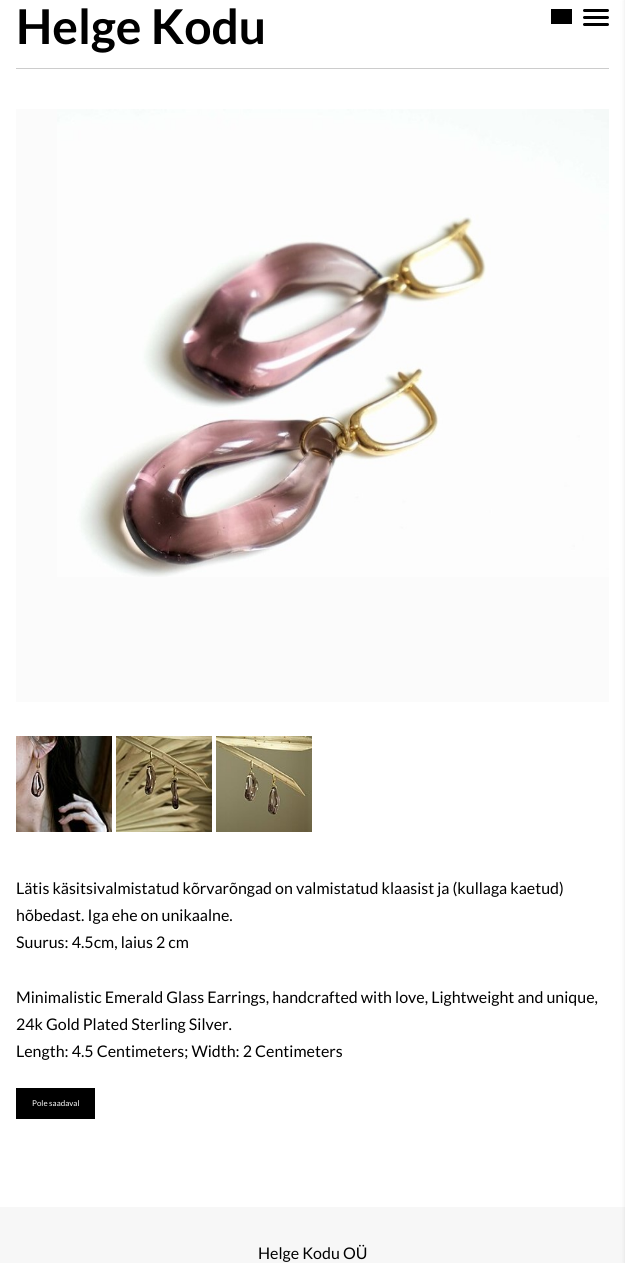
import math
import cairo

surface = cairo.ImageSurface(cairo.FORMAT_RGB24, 625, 1263)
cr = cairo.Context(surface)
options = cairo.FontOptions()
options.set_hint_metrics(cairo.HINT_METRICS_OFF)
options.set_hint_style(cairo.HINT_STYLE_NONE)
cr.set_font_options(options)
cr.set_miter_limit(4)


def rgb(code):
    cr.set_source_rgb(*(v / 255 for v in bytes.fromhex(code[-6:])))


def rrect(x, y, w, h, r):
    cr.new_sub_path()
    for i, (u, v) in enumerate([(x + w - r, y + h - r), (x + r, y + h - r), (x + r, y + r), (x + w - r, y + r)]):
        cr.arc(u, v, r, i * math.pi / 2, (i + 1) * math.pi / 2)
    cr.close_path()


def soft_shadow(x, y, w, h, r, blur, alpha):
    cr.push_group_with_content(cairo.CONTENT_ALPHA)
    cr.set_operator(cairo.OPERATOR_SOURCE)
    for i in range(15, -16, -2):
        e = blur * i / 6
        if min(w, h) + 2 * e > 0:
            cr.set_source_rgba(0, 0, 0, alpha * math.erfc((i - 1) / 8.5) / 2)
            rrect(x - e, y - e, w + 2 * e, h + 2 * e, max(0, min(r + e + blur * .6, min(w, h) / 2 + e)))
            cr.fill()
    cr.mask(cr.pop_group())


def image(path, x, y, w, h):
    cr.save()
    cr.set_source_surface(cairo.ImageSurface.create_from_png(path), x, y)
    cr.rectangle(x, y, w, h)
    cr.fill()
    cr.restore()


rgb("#ffffff")
cr.paint()
rgb("#000000")
cr.rectangle(551, 9, 21, 15)
cr.fill()
rrect(583, 9, 26, 3, 1.5)
cr.fill()
rrect(583, 16, 26, 3, 1.5)
cr.fill()
rrect(583, 23, 26, 3, 1.5)
cr.fill()
rgb("#f7f7f7")
cr.rectangle(0, 1207, 625, 56)
cr.fill()
rgb("#000000")
soft_shadow(625, 0, 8, 1263, 0, 2.5, 0.1)
rgb("#cccccc")
cr.rectangle(16, 68, 593, 1)
cr.fill()
rgb("#fbfbfb")
cr.rectangle(16, 109, 593, 593)
cr.fill()
image("img/1.png", 57, 109, 552, 468)
image("img/2.png", 16, 736, 96, 96)
image("img/3.png", 116, 736, 96, 96)
image("img/4.png", 216, 736, 96, 96)
rgb("#000000")
cr.rectangle(16, 1088, 79, 31)
cr.fill()
cr.select_font_face("Lato", cairo.FONT_SLANT_NORMAL, cairo.FONT_WEIGHT_BOLD)
cr.set_font_size(48)
cr.move_to(16, 44)
cr.show_text("Helge Kodu")
cr.select_font_face("Lato")
cr.set_font_size(16)
for x, y, s in [
    (16, 894, "Lätis käsitsivalmistatud kõrvarõngad on valmistatud klaasist ja (kullaga kaetud)"),
    (16, 921, "hõbedast. Iga ehe on unikaalne."),
    (16, 948, "Suurus: 4.5cm, laius 2 cm"),
    (16, 1003, "Minimalistic Emerald Glass Earrings, handcrafted with love, Lightweight and unique,"),
    (16, 1030, "24k Gold Plated Sterling Silver."),
    (16, 1057, "Length: 4.5 Centimeters; Width: 2 Centimeters"),
]:
    cr.move_to(x, y)
    cr.show_text(s)
cr.set_font_size(8)
rgb("#ffffff")
cr.move_to(32, 1106)
cr.show_text("Pole saadaval")
cr.set_font_size(16)
rgb("#000000")
cr.move_to(258, 1259)
cr.show_text("Helge Kodu OÜ")
surface.write_to_png("page.png")
